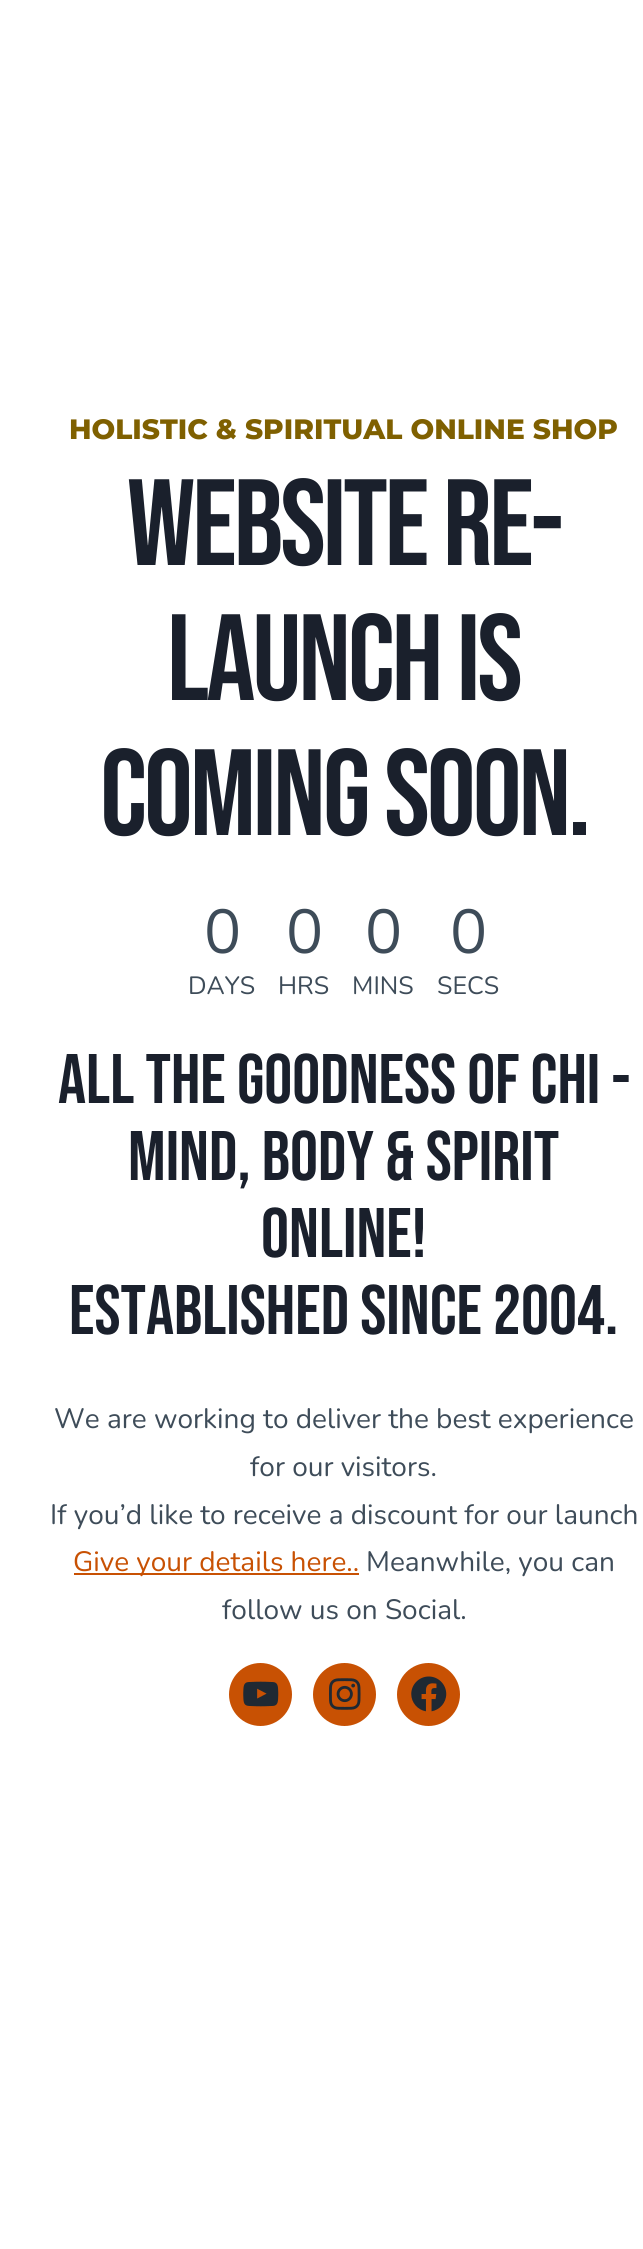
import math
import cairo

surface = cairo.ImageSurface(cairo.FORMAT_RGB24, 643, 2249)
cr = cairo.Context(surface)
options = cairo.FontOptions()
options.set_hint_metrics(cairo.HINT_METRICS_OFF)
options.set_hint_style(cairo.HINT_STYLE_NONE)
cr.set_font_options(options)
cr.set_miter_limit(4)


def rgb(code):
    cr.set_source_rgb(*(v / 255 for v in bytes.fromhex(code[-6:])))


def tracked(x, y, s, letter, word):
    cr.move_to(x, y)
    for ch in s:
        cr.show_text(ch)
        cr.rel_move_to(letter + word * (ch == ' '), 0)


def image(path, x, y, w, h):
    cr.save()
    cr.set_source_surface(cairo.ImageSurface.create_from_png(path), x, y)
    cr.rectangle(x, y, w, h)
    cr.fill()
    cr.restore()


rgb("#ffffff")
cr.paint()
rgb("#c85103")
cr.rectangle(74, 1573, 285, 2)
cr.fill()
cr.arc(260.5, 1694.5, 31.5, 0, 2 * math.pi)
cr.fill()
image("img/1.png", 243, 1681, 36, 26)
cr.arc(344.5, 1694.5, 31.5, 0, 2 * math.pi)
cr.fill()
image("img/2.png", 329, 1678, 32, 32)
cr.arc(428.5, 1694.5, 31.5, 0, 2 * math.pi)
cr.fill()
image("img/3.png", 411, 1676, 36, 36)
cr.select_font_face("Montserrat Thin")
cr.set_font_size(28)
rgb("#7f6000")
cr.move_to(69, 439)
cr.show_text("HOLISTIC & SPIRITUAL ONLINE SHOP")
cr.select_font_face("Bebas Neue")
cr.set_font_size(122.5)
rgb("#1a202c")
for x, y, s in [
    (127, 565, "WEBSITE RE-"),
    (167, 700, "LAUNCH IS"),
    (100, 835, "COMING SOON."),
]:
    tracked(x, y, s, -3, 0)
cr.select_font_face("Nunito")
cr.set_font_size(62)
rgb("#3e4c59")
cr.move_to(204, 953)
cr.show_text("0")
cr.set_font_size(25)
cr.move_to(188, 994)
cr.show_text("DAYS")
cr.set_font_size(62)
cr.move_to(286, 953)
cr.show_text("0")
cr.set_font_size(25)
cr.move_to(278, 994)
cr.show_text("HRS")
cr.set_font_size(62)
cr.move_to(365, 953)
cr.show_text("0")
cr.set_font_size(25)
cr.move_to(352, 994)
cr.show_text("MINS")
cr.set_font_size(62)
cr.move_to(450, 953)
cr.show_text("0")
cr.set_font_size(25)
cr.move_to(437, 994)
cr.show_text("SECS")
cr.select_font_face("Bebas Neue")
cr.set_font_size(70)
rgb("#1a202c")
for x, y, s in [
    (58, 1103, "ALL THE GOODNESS OF CHI -"),
    (128, 1180, "MIND, BODY & SPIRIT"),
    (261, 1257, "ONLINE!"),
    (69, 1334, "ESTABLISHED SINCE 2004."),
]:
    cr.move_to(x, y)
    cr.show_text(s)
cr.select_font_face("Nunito")
cr.set_font_size(28)
rgb("#3e4c59")
for x, y, s in [
    (54, 1428, "We are working to deliver the best experience"),
    (250, 1476, "for our visitors."),
    (50, 1524, "If you’d like to receive a discount for our launch"),
]:
    cr.move_to(x, y)
    cr.show_text(s)
rgb("#c85103")
cr.move_to(73, 1571)
cr.show_text("Give your details here..")
rgb("#3e4c59")
cr.move_to(366, 1571)
cr.show_text("Meanwhile, you can")
cr.move_to(222, 1619)
cr.show_text("follow us on Social.")
surface.write_to_png("page.png")
